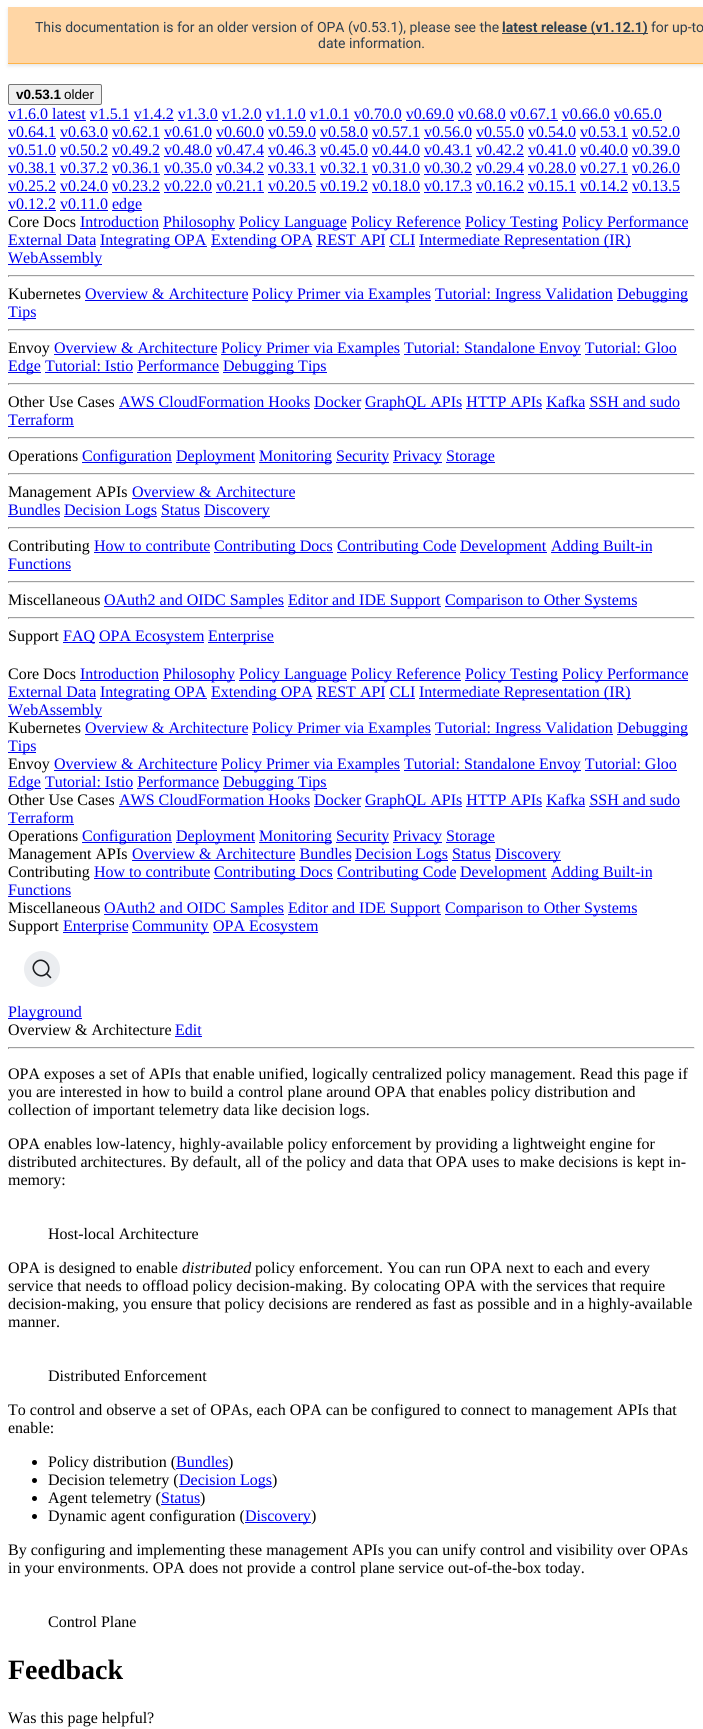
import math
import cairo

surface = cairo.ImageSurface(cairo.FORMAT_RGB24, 703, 1729)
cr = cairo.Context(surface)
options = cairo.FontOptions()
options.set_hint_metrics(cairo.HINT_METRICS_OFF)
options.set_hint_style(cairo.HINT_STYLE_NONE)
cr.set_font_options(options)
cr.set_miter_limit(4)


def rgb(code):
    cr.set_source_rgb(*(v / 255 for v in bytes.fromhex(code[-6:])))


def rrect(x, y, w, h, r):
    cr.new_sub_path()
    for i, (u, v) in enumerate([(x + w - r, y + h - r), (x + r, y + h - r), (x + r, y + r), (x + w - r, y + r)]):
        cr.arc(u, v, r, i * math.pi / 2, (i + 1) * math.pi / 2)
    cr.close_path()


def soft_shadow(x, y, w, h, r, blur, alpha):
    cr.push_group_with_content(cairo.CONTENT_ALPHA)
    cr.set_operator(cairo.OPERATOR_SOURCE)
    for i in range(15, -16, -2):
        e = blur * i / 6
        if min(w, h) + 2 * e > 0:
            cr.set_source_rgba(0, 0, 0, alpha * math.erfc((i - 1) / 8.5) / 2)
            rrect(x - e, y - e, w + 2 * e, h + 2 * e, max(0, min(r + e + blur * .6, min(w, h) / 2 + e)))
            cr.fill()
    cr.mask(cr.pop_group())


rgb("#ffffff")
cr.paint()
rgb("#000000")
soft_shadow(8, 9, 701, 57, 0, 2, 0.1)
for x, y, w, h, color in [
    (8, 7, 695, 56, "#ffd6a5"),
    (8, 63, 695, 1, "#ffb347"),
    (502, 33, 146, 1, "#2c3e50"),
]:
    rgb(color)
    cr.rectangle(x, y, w, h)
    cr.fill()
rgb("#efefef")
rrect(8.5, 84.5, 93, 20, 1.5)
cr.fill_preserve()
rgb("#767676")
cr.set_line_width(1)
cr.stroke()
for x, y, w, h, color in [
    (8, 120, 78, 1, "#0000ee"),
    (90, 120, 40, 1, "#0000ee"),
    (134, 120, 40, 1, "#0000ee"),
    (178, 120, 40, 1, "#0000ee"),
    (222, 120, 40, 1, "#0000ee"),
    (266, 120, 40, 1, "#0000ee"),
    (310, 120, 40, 1, "#0000ee"),
    (354, 120, 48, 1, "#0000ee"),
    (406, 120, 48, 1, "#0000ee"),
    (458, 120, 48, 1, "#0000ee"),
    (510, 120, 48, 1, "#0000ee"),
    (562, 120, 48, 1, "#0000ee"),
    (614, 120, 48, 1, "#0000ee"),
    (8, 138, 48, 1, "#0000ee"),
    (60, 138, 48, 1, "#0000ee"),
    (112, 138, 48, 1, "#0000ee"),
    (164, 138, 48, 1, "#0000ee"),
    (216, 138, 48, 1, "#0000ee"),
    (268, 138, 48, 1, "#0000ee"),
    (320, 138, 48, 1, "#0000ee"),
    (372, 138, 48, 1, "#0000ee"),
    (424, 138, 48, 1, "#0000ee"),
    (476, 138, 48, 1, "#0000ee"),
    (528, 138, 48, 1, "#0000ee"),
    (580, 138, 48, 1, "#0000ee"),
    (632, 138, 48, 1, "#0000ee"),
    (8, 156, 48, 1, "#0000ee"),
    (60, 156, 48, 1, "#0000ee"),
    (112, 156, 48, 1, "#0000ee"),
    (164, 156, 48, 1, "#0000ee"),
    (216, 156, 48, 1, "#0000ee"),
    (268, 156, 48, 1, "#0000ee"),
    (320, 156, 48, 1, "#0000ee"),
    (372, 156, 48, 1, "#0000ee"),
    (424, 156, 48, 1, "#0000ee"),
    (476, 156, 48, 1, "#0000ee"),
    (528, 156, 48, 1, "#0000ee"),
    (580, 156, 48, 1, "#0000ee"),
    (632, 156, 48, 1, "#0000ee"),
    (8, 174, 48, 1, "#0000ee"),
    (60, 174, 48, 1, "#0000ee"),
    (112, 174, 48, 1, "#0000ee"),
    (164, 174, 48, 1, "#0000ee"),
    (216, 174, 48, 1, "#0000ee"),
    (268, 174, 48, 1, "#0000ee"),
    (320, 174, 48, 1, "#0000ee"),
    (372, 174, 48, 1, "#0000ee"),
    (424, 174, 48, 1, "#0000ee"),
    (476, 174, 48, 1, "#0000ee"),
    (528, 174, 48, 1, "#0000ee"),
    (580, 174, 48, 1, "#0000ee"),
    (632, 174, 48, 1, "#0000ee"),
    (8, 192, 48, 1, "#0000ee"),
    (60, 192, 48, 1, "#0000ee"),
    (112, 192, 48, 1, "#0000ee"),
    (164, 192, 48, 1, "#0000ee"),
    (216, 192, 48, 1, "#0000ee"),
    (268, 192, 48, 1, "#0000ee"),
    (320, 192, 48, 1, "#0000ee"),
    (372, 192, 48, 1, "#0000ee"),
    (424, 192, 48, 1, "#0000ee"),
    (476, 192, 48, 1, "#0000ee"),
    (528, 192, 48, 1, "#0000ee"),
    (580, 192, 48, 1, "#0000ee"),
    (632, 192, 48, 1, "#0000ee"),
    (8, 210, 48, 1, "#0000ee"),
    (112, 210, 30, 1, "#0000ee"),
    (60, 210, 48, 1, "#0000ee"),
    (80, 228, 79, 1, "#0000ee"),
    (163, 228, 72, 1, "#0000ee"),
    (239, 228, 108, 1, "#0000ee"),
    (351, 228, 110, 1, "#0000ee"),
    (465, 228, 93, 1, "#0000ee"),
    (562, 228, 126, 1, "#0000ee"),
    (8, 246, 88, 1, "#0000ee"),
    (100, 246, 107, 1, "#0000ee"),
    (211, 246, 101, 1, "#0000ee"),
    (419, 246, 212, 1, "#0000ee"),
    (316, 246, 69, 1, "#0000ee"),
    (389, 246, 26, 1, "#0000ee"),
    (8, 264, 94, 1, "#0000ee"),
    (8, 275, 687, 1, "#9f9f9f"),
    (694, 275, 1, 2, "#eeeeee"),
    (8, 276, 687, 1, "#eeeeee"),
    (8, 275, 1, 2, "#9f9f9f"),
    (85, 300, 163, 1, "#0000ee"),
    (252, 300, 179, 1, "#0000ee"),
    (435, 300, 178, 1, "#0000ee"),
    (617, 300, 71, 1, "#0000ee"),
    (8, 318, 28, 1, "#0000ee"),
    (8, 329, 687, 1, "#9f9f9f"),
    (694, 329, 1, 2, "#eeeeee"),
    (8, 330, 687, 1, "#eeeeee"),
    (8, 329, 1, 2, "#9f9f9f"),
    (54, 354, 163, 1, "#0000ee"),
    (221, 354, 179, 1, "#0000ee"),
    (404, 354, 177, 1, "#0000ee"),
    (585, 354, 92, 1, "#0000ee"),
    (8, 372, 33, 1, "#0000ee"),
    (223, 372, 104, 1, "#0000ee"),
    (45, 372, 88, 1, "#0000ee"),
    (137, 372, 82, 1, "#0000ee"),
    (8, 383, 687, 1, "#9f9f9f"),
    (694, 383, 1, 2, "#eeeeee"),
    (8, 384, 687, 1, "#eeeeee"),
    (8, 383, 1, 2, "#9f9f9f"),
    (119, 408, 191, 1, "#0000ee"),
    (365, 408, 97, 1, "#0000ee"),
    (314, 408, 47, 1, "#0000ee"),
    (466, 408, 76, 1, "#0000ee"),
    (546, 408, 39, 1, "#0000ee"),
    (589, 408, 91, 1, "#0000ee"),
    (8, 426, 66, 1, "#0000ee"),
    (8, 437, 687, 1, "#9f9f9f"),
    (694, 437, 1, 2, "#eeeeee"),
    (8, 438, 687, 1, "#eeeeee"),
    (8, 437, 1, 2, "#9f9f9f"),
    (82, 462, 90, 1, "#0000ee"),
    (176, 462, 79, 1, "#0000ee"),
    (259, 462, 73, 1, "#0000ee"),
    (336, 462, 53, 1, "#0000ee"),
    (393, 462, 49, 1, "#0000ee"),
    (446, 462, 49, 1, "#0000ee"),
    (8, 473, 687, 1, "#9f9f9f"),
    (694, 473, 1, 2, "#eeeeee"),
    (8, 474, 687, 1, "#eeeeee"),
    (8, 473, 1, 2, "#9f9f9f"),
    (132, 498, 163, 1, "#0000ee"),
    (8, 516, 52, 1, "#0000ee"),
    (64, 516, 93, 1, "#0000ee"),
    (204, 516, 66, 1, "#0000ee"),
    (161, 516, 39, 1, "#0000ee"),
    (8, 527, 687, 1, "#9f9f9f"),
    (694, 527, 1, 2, "#eeeeee"),
    (8, 528, 687, 1, "#eeeeee"),
    (8, 527, 1, 2, "#9f9f9f"),
    (94, 552, 116, 1, "#0000ee"),
    (214, 552, 119, 1, "#0000ee"),
    (337, 552, 119, 1, "#0000ee"),
    (460, 552, 87, 1, "#0000ee"),
    (551, 552, 101, 1, "#0000ee"),
    (8, 570, 63, 1, "#0000ee"),
    (8, 581, 687, 1, "#9f9f9f"),
    (694, 581, 1, 2, "#eeeeee"),
    (8, 582, 687, 1, "#eeeeee"),
    (8, 581, 1, 2, "#9f9f9f"),
    (104, 606, 180, 1, "#0000ee"),
    (288, 606, 153, 1, "#0000ee"),
    (445, 606, 192, 1, "#0000ee"),
    (8, 617, 687, 1, "#9f9f9f"),
    (694, 617, 1, 2, "#eeeeee"),
    (8, 618, 687, 1, "#eeeeee"),
    (8, 617, 1, 2, "#9f9f9f"),
    (63, 642, 32, 1, "#0000ee"),
    (99, 642, 105, 1, "#0000ee"),
    (208, 642, 66, 1, "#0000ee"),
    (80, 680, 79, 1, "#0000ee"),
    (163, 680, 72, 1, "#0000ee"),
    (239, 680, 108, 1, "#0000ee"),
    (351, 680, 110, 1, "#0000ee"),
    (465, 680, 93, 1, "#0000ee"),
    (562, 680, 126, 1, "#0000ee"),
    (8, 698, 88, 1, "#0000ee"),
    (100, 698, 107, 1, "#0000ee"),
    (211, 698, 101, 1, "#0000ee"),
    (419, 698, 212, 1, "#0000ee"),
    (316, 698, 69, 1, "#0000ee"),
    (389, 698, 26, 1, "#0000ee"),
    (8, 716, 94, 1, "#0000ee"),
    (85, 734, 163, 1, "#0000ee"),
    (252, 734, 179, 1, "#0000ee"),
    (435, 734, 178, 1, "#0000ee"),
    (617, 734, 71, 1, "#0000ee"),
    (8, 752, 28, 1, "#0000ee"),
    (54, 770, 163, 1, "#0000ee"),
    (221, 770, 179, 1, "#0000ee"),
    (404, 770, 177, 1, "#0000ee"),
    (585, 770, 92, 1, "#0000ee"),
    (8, 788, 33, 1, "#0000ee"),
    (223, 788, 104, 1, "#0000ee"),
    (45, 788, 88, 1, "#0000ee"),
    (137, 788, 82, 1, "#0000ee"),
    (119, 806, 191, 1, "#0000ee"),
    (365, 806, 97, 1, "#0000ee"),
    (314, 806, 47, 1, "#0000ee"),
    (466, 806, 76, 1, "#0000ee"),
    (546, 806, 39, 1, "#0000ee"),
    (589, 806, 91, 1, "#0000ee"),
    (8, 824, 66, 1, "#0000ee"),
    (82, 842, 90, 1, "#0000ee"),
    (176, 842, 79, 1, "#0000ee"),
    (259, 842, 73, 1, "#0000ee"),
    (336, 842, 53, 1, "#0000ee"),
    (393, 842, 49, 1, "#0000ee"),
    (446, 842, 49, 1, "#0000ee"),
    (132, 860, 163, 1, "#0000ee"),
    (355, 860, 93, 1, "#0000ee"),
    (495, 860, 66, 1, "#0000ee"),
    (299, 860, 52, 1, "#0000ee"),
    (452, 860, 39, 1, "#0000ee"),
    (94, 878, 116, 1, "#0000ee"),
    (214, 878, 119, 1, "#0000ee"),
    (337, 878, 119, 1, "#0000ee"),
    (460, 878, 87, 1, "#0000ee"),
    (551, 878, 101, 1, "#0000ee"),
    (8, 896, 63, 1, "#0000ee"),
    (104, 914, 180, 1, "#0000ee"),
    (288, 914, 153, 1, "#0000ee"),
    (445, 914, 192, 1, "#0000ee"),
    (63, 932, 65, 1, "#0000ee"),
    (132, 932, 77, 1, "#0000ee"),
    (213, 932, 105, 1, "#0000ee"),
]:
    rgb(color)
    cr.rectangle(x, y, w, h)
    cr.fill()
rgb("#ebedf0")
cr.arc(42, 969, 18, 0, 2 * math.pi)
cr.fill()
cr.new_path()
cr.move_to(46.5, 973.5)
cr.line_to(50.5, 977.5)
cr.line_to(46.5, 973.5)
cr.curve_to(39.5, 980.5, 28.5, 969.5, 35.5, 962.5)
cr.curve_to(42.5, 955.5, 53.5, 966.5, 46.5, 973.5)
cr.close_path()
rgb("#1c1e21")
cr.set_line_width(1.6)
cr.set_line_cap(cairo.LINE_CAP_ROUND)
cr.set_line_join(cairo.LINE_JOIN_ROUND)
cr.stroke()
for x, y, w, h, color in [
    (8, 1018, 74, 1, "#0000ee"),
    (175, 1036, 27, 1, "#0000ee"),
    (8, 1047, 687, 1, "#9f9f9f"),
    (694, 1047, 1, 2, "#eeeeee"),
    (8, 1048, 687, 1, "#eeeeee"),
    (8, 1047, 1, 2, "#9f9f9f"),
]:
    rgb(color)
    cr.rectangle(x, y, w, h)
    cr.fill()
rgb("#000000")
cr.arc(34.5, 1462.5, 2.5, 0, 2 * math.pi)
cr.fill()
rgb("#0000ee")
cr.rectangle(176, 1468, 52, 1)
cr.fill()
rgb("#000000")
cr.arc(34.5, 1480.5, 2.5, 0, 2 * math.pi)
cr.fill()
rgb("#0000ee")
cr.rectangle(179, 1486, 93, 1)
cr.fill()
rgb("#000000")
cr.arc(34.5, 1498.5, 2.5, 0, 2 * math.pi)
cr.fill()
rgb("#0000ee")
cr.rectangle(161, 1504, 39, 1)
cr.fill()
rgb("#000000")
cr.arc(34.5, 1516.5, 2.5, 0, 2 * math.pi)
cr.fill()
rgb("#0000ee")
cr.rectangle(245, 1522, 66, 1)
cr.fill()
cr.select_font_face("Roboto")
cr.set_font_size(14)
rgb("#2c3e50")
cr.move_to(35, 32)
cr.show_text("This documentation is for an older version of OPA (v0.53.1), please see the")
cr.select_font_face("Roboto", cairo.FONT_SLANT_NORMAL, cairo.FONT_WEIGHT_BOLD)
cr.move_to(502, 32)
cr.show_text("latest release (v1.12.1)")
cr.select_font_face("Roboto")
cr.move_to(651, 32)
cr.show_text("for up-to")
cr.move_to(318, 48)
cr.show_text("date information.")
cr.select_font_face("Liberation Sans", cairo.FONT_SLANT_NORMAL, cairo.FONT_WEIGHT_BOLD)
cr.set_font_size(13.5)
rgb("#000000")
cr.move_to(16, 99)
cr.show_text("v0.53.1")
cr.select_font_face("Liberation Sans")
cr.move_to(64, 99)
cr.show_text("older")
cr.select_font_face("Liberation Serif")
cr.set_font_size(16)
rgb("#0000ee")
for x, y, s in [
    (8, 119, "v1.6.0 latest v1.5.1 v1.4.2 v1.3.0 v1.2.0 v1.1.0 v1.0.1 v0.70.0 v0.69.0 v0.68.0 v0.67.1 v0.66.0 v0.65.0"),
    (8, 137, "v0.64.1 v0.63.0 v0.62.1 v0.61.0 v0.60.0 v0.59.0 v0.58.0 v0.57.1 v0.56.0 v0.55.0 v0.54.0 v0.53.1 v0.52.0"),
    (8, 155, "v0.51.0 v0.50.2 v0.49.2 v0.48.0 v0.47.4 v0.46.3 v0.45.0 v0.44.0 v0.43.1 v0.42.2 v0.41.0 v0.40.0 v0.39.0"),
    (8, 173, "v0.38.1 v0.37.2 v0.36.1 v0.35.0 v0.34.2 v0.33.1 v0.32.1 v0.31.0 v0.30.2 v0.29.4 v0.28.0 v0.27.1 v0.26.0"),
    (8, 191, "v0.25.2 v0.24.0 v0.23.2 v0.22.0 v0.21.1 v0.20.5 v0.19.2 v0.18.0 v0.17.3 v0.16.2 v0.15.1 v0.14.2 v0.13.5"),
    (8, 209, "v0.12.2 v0.11.0"),
    (112, 209, "edge"),
]:
    cr.move_to(x, y)
    cr.show_text(s)
rgb("#000000")
cr.move_to(8, 227)
cr.show_text("Core Docs")
rgb("#0000ee")
for x, y, s in [
    (80, 227, "Introduction"),
    (163, 227, "Philosophy"),
    (239, 227, "Policy Language"),
    (351, 227, "Policy Reference"),
    (465, 227, "Policy Testing"),
    (562, 227, "Policy Performance"),
    (8, 245, "External Data"),
    (100, 245, "Integrating OPA"),
    (211, 245, "Extending OPA REST API CLI"),
    (419, 245, "Intermediate Representation (IR)"),
    (8, 263, "WebAssembly"),
]:
    cr.move_to(x, y)
    cr.show_text(s)
rgb("#000000")
cr.move_to(8, 299)
cr.show_text("Kubernetes")
rgb("#0000ee")
for x, y, s in [
    (85, 299, "Overview & Architecture"),
    (252, 299, "Policy Primer via Examples"),
    (435, 299, "Tutorial: Ingress Validation"),
    (617, 299, "Debugging"),
    (8, 317, "Tips"),
]:
    cr.move_to(x, y)
    cr.show_text(s)
rgb("#000000")
cr.move_to(8, 353)
cr.show_text("Envoy")
rgb("#0000ee")
for x, y, s in [
    (54, 353, "Overview & Architecture"),
    (221, 353, "Policy Primer via Examples"),
    (404, 353, "Tutorial: Standalone Envoy Tutorial: Gloo"),
    (8, 371, "Edge Tutorial: Istio Performance"),
    (223, 371, "Debugging Tips"),
]:
    cr.move_to(x, y)
    cr.show_text(s)
rgb("#000000")
cr.move_to(8, 407)
cr.show_text("Other Use Cases")
rgb("#0000ee")
for x, y, s in [
    (119, 407, "AWS CloudFormation Hooks Docker"),
    (365, 407, "GraphQL APIs HTTP APIs Kafka SSH and sudo"),
    (8, 425, "Terraform"),
]:
    cr.move_to(x, y)
    cr.show_text(s)
rgb("#000000")
cr.move_to(8, 461)
cr.show_text("Operations")
rgb("#0000ee")
for x, y, s in [
    (82, 461, "Configuration"),
    (176, 461, "Deployment"),
    (259, 461, "Monitoring"),
    (336, 461, "Security"),
    (393, 461, "Privacy"),
    (446, 461, "Storage"),
]:
    cr.move_to(x, y)
    cr.show_text(s)
rgb("#000000")
cr.move_to(8, 497)
cr.show_text("Management APIs")
rgb("#0000ee")
for x, y, s in [
    (132, 497, "Overview & Architecture"),
    (8, 515, "Bundles"),
    (64, 515, "Decision Logs Status"),
    (204, 515, "Discovery"),
]:
    cr.move_to(x, y)
    cr.show_text(s)
rgb("#000000")
cr.move_to(8, 551)
cr.show_text("Contributing")
rgb("#0000ee")
for x, y, s in [
    (94, 551, "How to contribute"),
    (214, 551, "Contributing Docs"),
    (337, 551, "Contributing Code"),
    (460, 551, "Development"),
    (551, 551, "Adding Built-in"),
    (8, 569, "Functions"),
]:
    cr.move_to(x, y)
    cr.show_text(s)
rgb("#000000")
cr.move_to(8, 605)
cr.show_text("Miscellaneous")
rgb("#0000ee")
for x, y, s in [
    (104, 605, "OAuth2 and OIDC Samples"),
    (288, 605, "Editor and IDE Support"),
    (445, 605, "Comparison to Other Systems"),
]:
    cr.move_to(x, y)
    cr.show_text(s)
rgb("#000000")
cr.move_to(8, 641)
cr.show_text("Support")
rgb("#0000ee")
for x, y, s in [
    (63, 641, "FAQ"),
    (99, 641, "OPA Ecosystem"),
    (208, 641, "Enterprise"),
]:
    cr.move_to(x, y)
    cr.show_text(s)
rgb("#000000")
cr.move_to(8, 679)
cr.show_text("Core Docs")
rgb("#0000ee")
for x, y, s in [
    (80, 679, "Introduction"),
    (163, 679, "Philosophy"),
    (239, 679, "Policy Language"),
    (351, 679, "Policy Reference"),
    (465, 679, "Policy Testing"),
    (562, 679, "Policy Performance"),
    (8, 697, "External Data"),
    (100, 697, "Integrating OPA"),
    (211, 697, "Extending OPA REST API CLI"),
    (419, 697, "Intermediate Representation (IR)"),
    (8, 715, "WebAssembly"),
]:
    cr.move_to(x, y)
    cr.show_text(s)
rgb("#000000")
cr.move_to(8, 733)
cr.show_text("Kubernetes")
rgb("#0000ee")
for x, y, s in [
    (85, 733, "Overview & Architecture"),
    (252, 733, "Policy Primer via Examples"),
    (435, 733, "Tutorial: Ingress Validation"),
    (617, 733, "Debugging"),
    (8, 751, "Tips"),
]:
    cr.move_to(x, y)
    cr.show_text(s)
rgb("#000000")
cr.move_to(8, 769)
cr.show_text("Envoy")
rgb("#0000ee")
for x, y, s in [
    (54, 769, "Overview & Architecture"),
    (221, 769, "Policy Primer via Examples"),
    (404, 769, "Tutorial: Standalone Envoy Tutorial: Gloo"),
    (8, 787, "Edge Tutorial: Istio Performance"),
    (223, 787, "Debugging Tips"),
]:
    cr.move_to(x, y)
    cr.show_text(s)
rgb("#000000")
cr.move_to(8, 805)
cr.show_text("Other Use Cases")
rgb("#0000ee")
for x, y, s in [
    (119, 805, "AWS CloudFormation Hooks Docker"),
    (365, 805, "GraphQL APIs HTTP APIs Kafka SSH and sudo"),
    (8, 823, "Terraform"),
]:
    cr.move_to(x, y)
    cr.show_text(s)
rgb("#000000")
cr.move_to(8, 841)
cr.show_text("Operations")
rgb("#0000ee")
for x, y, s in [
    (82, 841, "Configuration"),
    (176, 841, "Deployment"),
    (259, 841, "Monitoring"),
    (336, 841, "Security"),
    (393, 841, "Privacy"),
    (446, 841, "Storage"),
]:
    cr.move_to(x, y)
    cr.show_text(s)
rgb("#000000")
cr.move_to(8, 859)
cr.show_text("Management APIs")
rgb("#0000ee")
for x, y, s in [
    (132, 859, "Overview & Architecture Bundles"),
    (355, 859, "Decision Logs Status"),
    (495, 859, "Discovery"),
]:
    cr.move_to(x, y)
    cr.show_text(s)
rgb("#000000")
cr.move_to(8, 877)
cr.show_text("Contributing")
rgb("#0000ee")
for x, y, s in [
    (94, 877, "How to contribute"),
    (214, 877, "Contributing Docs"),
    (337, 877, "Contributing Code"),
    (460, 877, "Development"),
    (551, 877, "Adding Built-in"),
    (8, 895, "Functions"),
]:
    cr.move_to(x, y)
    cr.show_text(s)
rgb("#000000")
cr.move_to(8, 913)
cr.show_text("Miscellaneous")
rgb("#0000ee")
for x, y, s in [
    (104, 913, "OAuth2 and OIDC Samples"),
    (288, 913, "Editor and IDE Support"),
    (445, 913, "Comparison to Other Systems"),
]:
    cr.move_to(x, y)
    cr.show_text(s)
rgb("#000000")
cr.move_to(8, 931)
cr.show_text("Support")
rgb("#0000ee")
for x, y, s in [
    (63, 931, "Enterprise"),
    (132, 931, "Community"),
    (213, 931, "OPA Ecosystem"),
    (8, 1017, "Playground"),
]:
    cr.move_to(x, y)
    cr.show_text(s)
rgb("#000000")
cr.move_to(8, 1035)
cr.show_text("Overview & Architecture")
rgb("#0000ee")
cr.move_to(175, 1035)
cr.show_text("Edit")
rgb("#000000")
for x, y, s in [
    (8, 1079, "OPA exposes a set of APIs that enable unified, logically centralized policy management. Read this page if"),
    (8, 1097, "you are interested in how to build a control plane around OPA that enables policy distribution and"),
    (8, 1115, "collection of important telemetry data like decision logs."),
    (8, 1149, "OPA enables low-latency, highly-available policy enforcement by providing a lightweight engine for"),
    (8, 1167, "distributed architectures. By default, all of the policy and data that OPA uses to make decisions is kept in-"),
    (8, 1185, "memory:"),
    (48, 1239, "Host-local Architecture"),
    (8, 1273, "OPA is designed to enable"),
]:
    cr.move_to(x, y)
    cr.show_text(s)
cr.select_font_face("Liberation Serif", cairo.FONT_SLANT_ITALIC)
cr.move_to(182, 1273)
cr.show_text("distributed")
cr.select_font_face("Liberation Serif")
for x, y, s in [
    (255, 1273, "policy enforcement. You can run OPA next to each and every"),
    (8, 1291, "service that needs to offload policy decision-making. By colocating OPA with the services that require"),
    (8, 1309, "decision-making, you ensure that policy decisions are rendered as fast as possible and in a highly-available"),
    (8, 1327, "manner."),
    (48, 1381, "Distributed Enforcement"),
    (8, 1415, "To control and observe a set of OPAs, each OPA can be configured to connect to management APIs that"),
    (8, 1433, "enable:"),
    (48, 1467, "Policy distribution ("),
]:
    cr.move_to(x, y)
    cr.show_text(s)
rgb("#0000ee")
cr.move_to(176, 1467)
cr.show_text("Bundles")
rgb("#000000")
cr.move_to(228, 1467)
cr.show_text(")")
cr.move_to(48, 1485)
cr.show_text("Decision telemetry (")
rgb("#0000ee")
cr.move_to(179, 1485)
cr.show_text("Decision Logs")
rgb("#000000")
cr.move_to(272, 1485)
cr.show_text(")")
cr.move_to(48, 1503)
cr.show_text("Agent telemetry (")
rgb("#0000ee")
cr.move_to(161, 1503)
cr.show_text("Status")
rgb("#000000")
cr.move_to(200, 1503)
cr.show_text(")")
cr.move_to(48, 1521)
cr.show_text("Dynamic agent configuration (")
rgb("#0000ee")
cr.move_to(245, 1521)
cr.show_text("Discovery")
rgb("#000000")
for x, y, s in [
    (311, 1521, ")"),
    (8, 1555, "By configuring and implementing these management APIs you can unify control and visibility over OPAs"),
    (8, 1573, "in your environments. OPA does not provide a control plane service out-of-the-box today."),
    (48, 1627, "Control Plane"),
]:
    cr.move_to(x, y)
    cr.show_text(s)
cr.select_font_face("Liberation Serif", cairo.FONT_SLANT_NORMAL, cairo.FONT_WEIGHT_BOLD)
cr.set_font_size(28)
cr.move_to(8, 1679)
cr.show_text("Feedback")
cr.select_font_face("Liberation Serif")
cr.set_font_size(16)
cr.move_to(8, 1723)
cr.show_text("Was this page helpful?")
surface.write_to_png("page.png")
